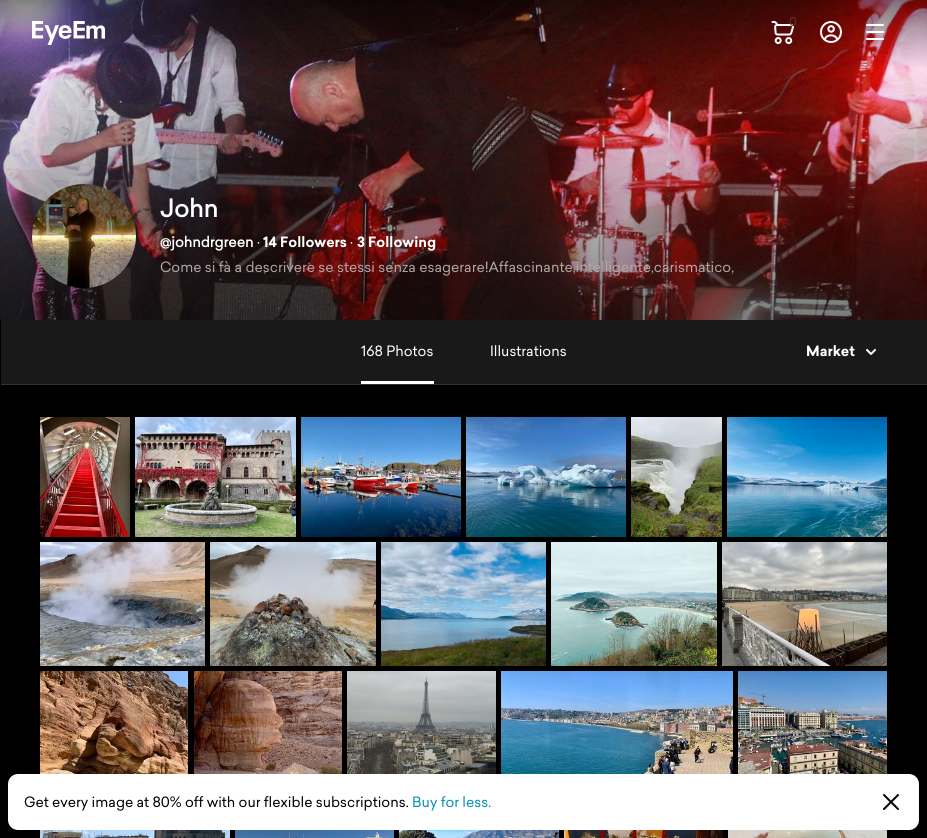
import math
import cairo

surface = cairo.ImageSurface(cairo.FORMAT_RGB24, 927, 838)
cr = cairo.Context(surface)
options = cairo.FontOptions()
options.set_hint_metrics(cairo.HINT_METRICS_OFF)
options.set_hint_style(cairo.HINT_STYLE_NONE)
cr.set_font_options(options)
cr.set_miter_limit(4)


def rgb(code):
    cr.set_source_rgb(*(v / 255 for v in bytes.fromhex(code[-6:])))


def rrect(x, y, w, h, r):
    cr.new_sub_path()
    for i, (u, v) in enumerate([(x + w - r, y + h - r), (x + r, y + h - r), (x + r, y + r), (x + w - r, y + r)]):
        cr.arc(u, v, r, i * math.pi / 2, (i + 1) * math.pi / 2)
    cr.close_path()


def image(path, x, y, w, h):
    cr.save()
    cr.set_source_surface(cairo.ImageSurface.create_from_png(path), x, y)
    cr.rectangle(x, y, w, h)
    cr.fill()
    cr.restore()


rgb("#000000")
cr.paint()
image("img/4.png", 0, 0, 927, 320)
image("img/1.png", 32, 21, 73, 24)
image("img/2.png", 771, 21, 23, 23)
image("img/3.png", 820, 21, 22, 22)
cr.new_path()
cr.move_to(867, 25)
cr.line_to(883, 25)
cr.move_to(867, 32)
cr.line_to(883, 32)
cr.move_to(867, 39)
cr.line_to(883, 39)
rgb("#ffffff")
cr.set_line_cap(cairo.LINE_CAP_ROUND)
cr.set_line_join(cairo.LINE_JOIN_ROUND)
cr.stroke()
image("img/5.png", 32, 184, 104, 104)
for x, y, w, h, color in [
    (1, 320, 926, 64, "#191919"),
    (0, 384, 927, 1, "#333333"),
    (0, 384, 1, 1, "#000000"),
    (361, 381, 73, 3, "#ffffff"),
]:
    rgb(color)
    cr.rectangle(x, y, w, h)
    cr.fill()
image("img/6.png", 866, 349, 10, 6)
image("img/7.png", 40, 417, 90, 120)
image("img/8.png", 135, 417, 161, 120)
image("img/9.png", 301, 417, 160, 120)
image("img/10.png", 466, 417, 160, 120)
image("img/11.png", 631, 417, 91, 120)
image("img/12.png", 727, 417, 160, 120)
image("img/13.png", 40, 542, 165, 124)
image("img/14.png", 210, 542, 166, 124)
image("img/15.png", 381, 542, 165, 124)
image("img/16.png", 551, 542, 166, 124)
image("img/17.png", 722, 542, 165, 124)
image("img/18.png", 40, 671, 148, 103)
image("img/19.png", 194, 671, 148, 103)
image("img/20.png", 347, 671, 149, 103)
image("img/21.png", 501, 671, 232, 103)
image("img/22.png", 738, 671, 149, 103)
image("img/23.png", 40, 830, 190, 8)
image("img/24.png", 235, 830, 159, 8)
image("img/25.png", 399, 830, 160, 8)
image("img/26.png", 564, 830, 159, 8)
image("img/27.png", 728, 830, 159, 8)
rrect(8, 774, 911, 56, 10)
cr.fill()
cr.new_path()
cr.move_to(898, 795)
cr.line_to(884, 809)
cr.move_to(884, 795)
cr.line_to(898, 809)
rgb("#000000")
cr.stroke()
cr.select_font_face("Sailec")
cr.set_font_size(12)
rgb("#682f2c")
cr.move_to(789, 26)
cr.show_text("0")
cr.select_font_face("Sailec", cairo.FONT_SLANT_NORMAL, cairo.FONT_WEIGHT_BOLD)
cr.set_font_size(24)
rgb("#ffffff")
cr.move_to(160, 217)
cr.show_text("John")
cr.set_font_size(14)
cr.move_to(160, 247)
cr.show_text("@johndrgreen")
cr.select_font_face("Sailec")
cr.move_to(257, 247)
cr.show_text("·")
cr.select_font_face("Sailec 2", cairo.FONT_SLANT_NORMAL, cairo.FONT_WEIGHT_BOLD)
cr.move_to(263, 247)
cr.show_text("14 Followers")
cr.select_font_face("Sailec")
cr.move_to(350, 247)
cr.show_text("·")
cr.select_font_face("Sailec 2", cairo.FONT_SLANT_NORMAL, cairo.FONT_WEIGHT_BOLD)
cr.move_to(357, 247)
cr.show_text("3 Following")
cr.select_font_face("Sailec")
rgb("#b3a5a5")
cr.move_to(160, 272)
cr.show_text("Come si fà a descrivere se stessi senza esagerare!Affascinante,intelligente,carismatico,")
rgb("#ffffff")
cr.move_to(361, 356)
cr.show_text("168 Photos")
cr.move_to(490, 356)
cr.show_text("Illustrations")
cr.select_font_face("Sailec 2", cairo.FONT_SLANT_NORMAL, cairo.FONT_WEIGHT_BOLD)
cr.move_to(806, 356)
cr.show_text("Market")
cr.select_font_face("Sailec")
rgb("#000000")
cr.move_to(24, 807)
cr.show_text("Get every image at 80% off with our flexible subscriptions.")
rgb("#0091b0")
cr.move_to(412, 807)
cr.show_text("Buy for less.")
surface.write_to_png("page.png")
